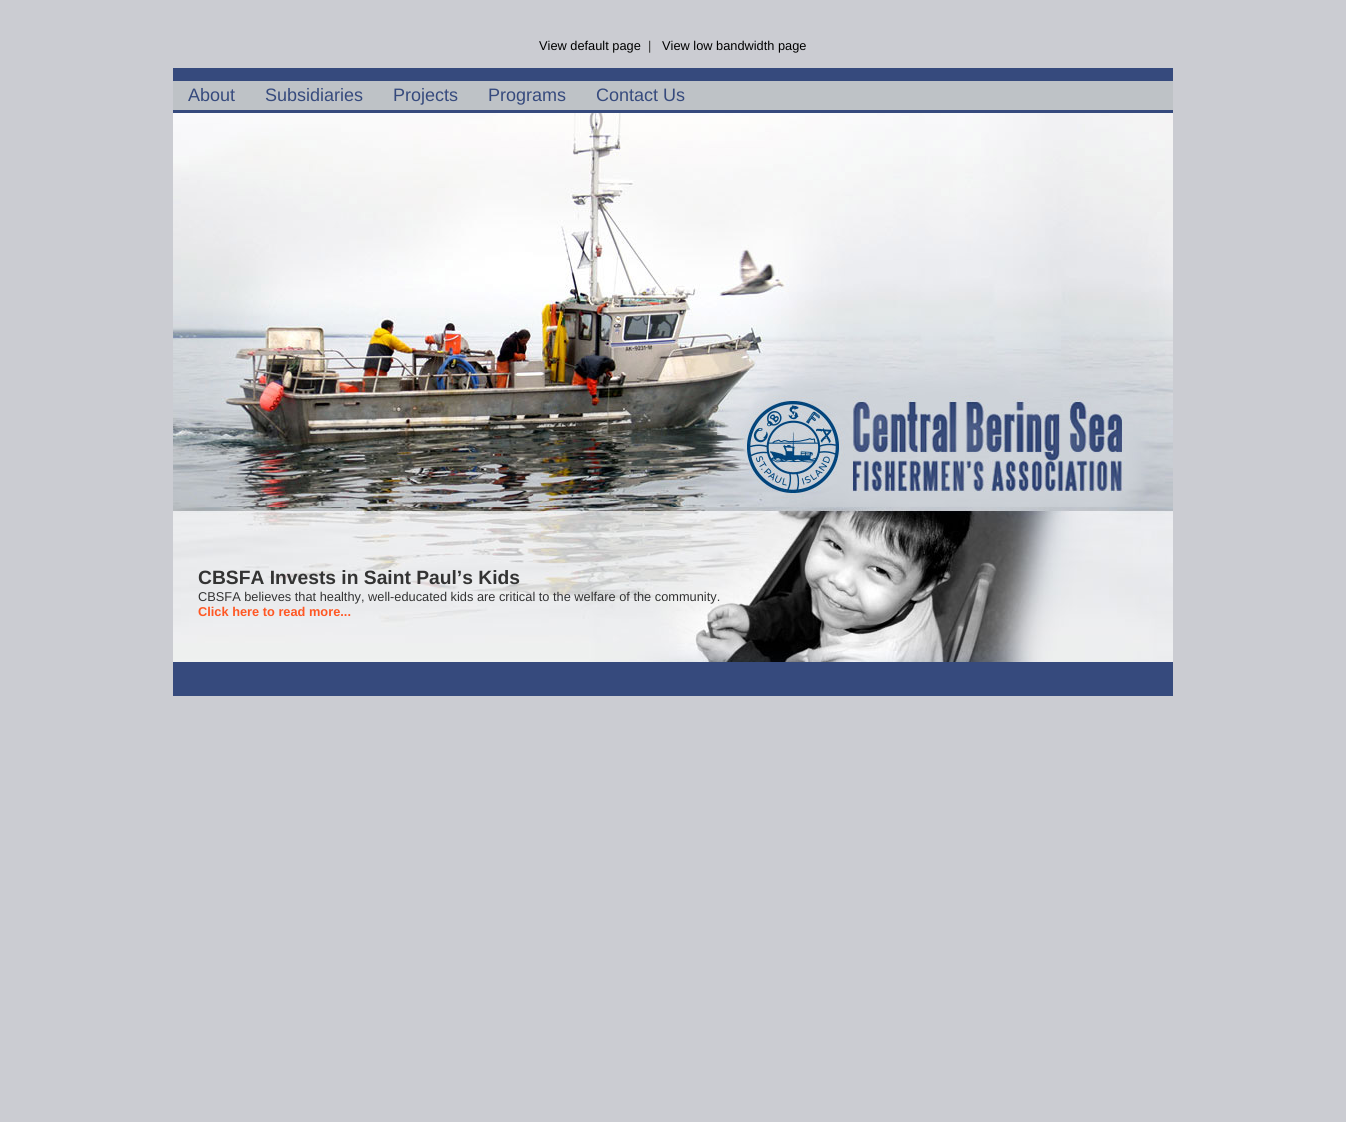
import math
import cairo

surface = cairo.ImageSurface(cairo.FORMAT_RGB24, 1346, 1122)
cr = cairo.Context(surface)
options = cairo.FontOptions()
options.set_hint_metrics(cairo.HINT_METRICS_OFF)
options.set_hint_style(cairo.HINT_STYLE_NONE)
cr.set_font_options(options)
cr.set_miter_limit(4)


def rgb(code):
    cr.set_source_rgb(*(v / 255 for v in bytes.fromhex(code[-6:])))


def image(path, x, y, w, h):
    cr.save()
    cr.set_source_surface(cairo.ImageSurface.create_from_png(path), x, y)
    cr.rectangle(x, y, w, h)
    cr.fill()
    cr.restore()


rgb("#cbccd2")
cr.paint()
rgb("#364a7d")
cr.rectangle(173, 68, 1000, 45)
cr.fill()
rgb("#bec2c6")
cr.rectangle(173, 81, 1000, 29)
cr.fill()
image("img/1.png", 173, 113, 1000, 394)
image("img/2.png", 173, 507, 1000, 155)
rgb("#364a7d")
cr.rectangle(173, 662, 1000, 34)
cr.fill()
cr.select_font_face("Liberation Sans")
cr.set_font_size(12.8)
rgb("#000000")
cr.move_to(539, 50)
cr.show_text("View default page")
rgb("#333333")
cr.move_to(648, 50)
cr.show_text("|")
rgb("#000000")
cr.move_to(662, 50)
cr.show_text("View low bandwidth page")
cr.set_font_size(18)
rgb("#364a7d")
for x, y, s in [
    (188, 101, "About"),
    (265, 101, "Subsidiaries"),
    (393, 101, "Projects"),
    (488, 101, "Programs"),
    (596, 101, "Contact Us"),
]:
    cr.move_to(x, y)
    cr.show_text(s)
cr.select_font_face("Liberation Sans", cairo.FONT_SLANT_NORMAL, cairo.FONT_WEIGHT_BOLD)
cr.set_font_size(19.25)
rgb("#333333")
cr.move_to(198, 584)
cr.show_text("CBSFA Invests in Saint Paul’s Kids")
cr.select_font_face("Liberation Sans")
cr.set_font_size(12.8)
cr.move_to(198, 601)
cr.show_text("CBSFA believes that healthy, well-educated kids are critical to the welfare of the community.")
cr.select_font_face("Liberation Sans", cairo.FONT_SLANT_NORMAL, cairo.FONT_WEIGHT_BOLD)
rgb("#ff5723")
cr.move_to(198, 616)
cr.show_text("Click here to read more...")
surface.write_to_png("page.png")
